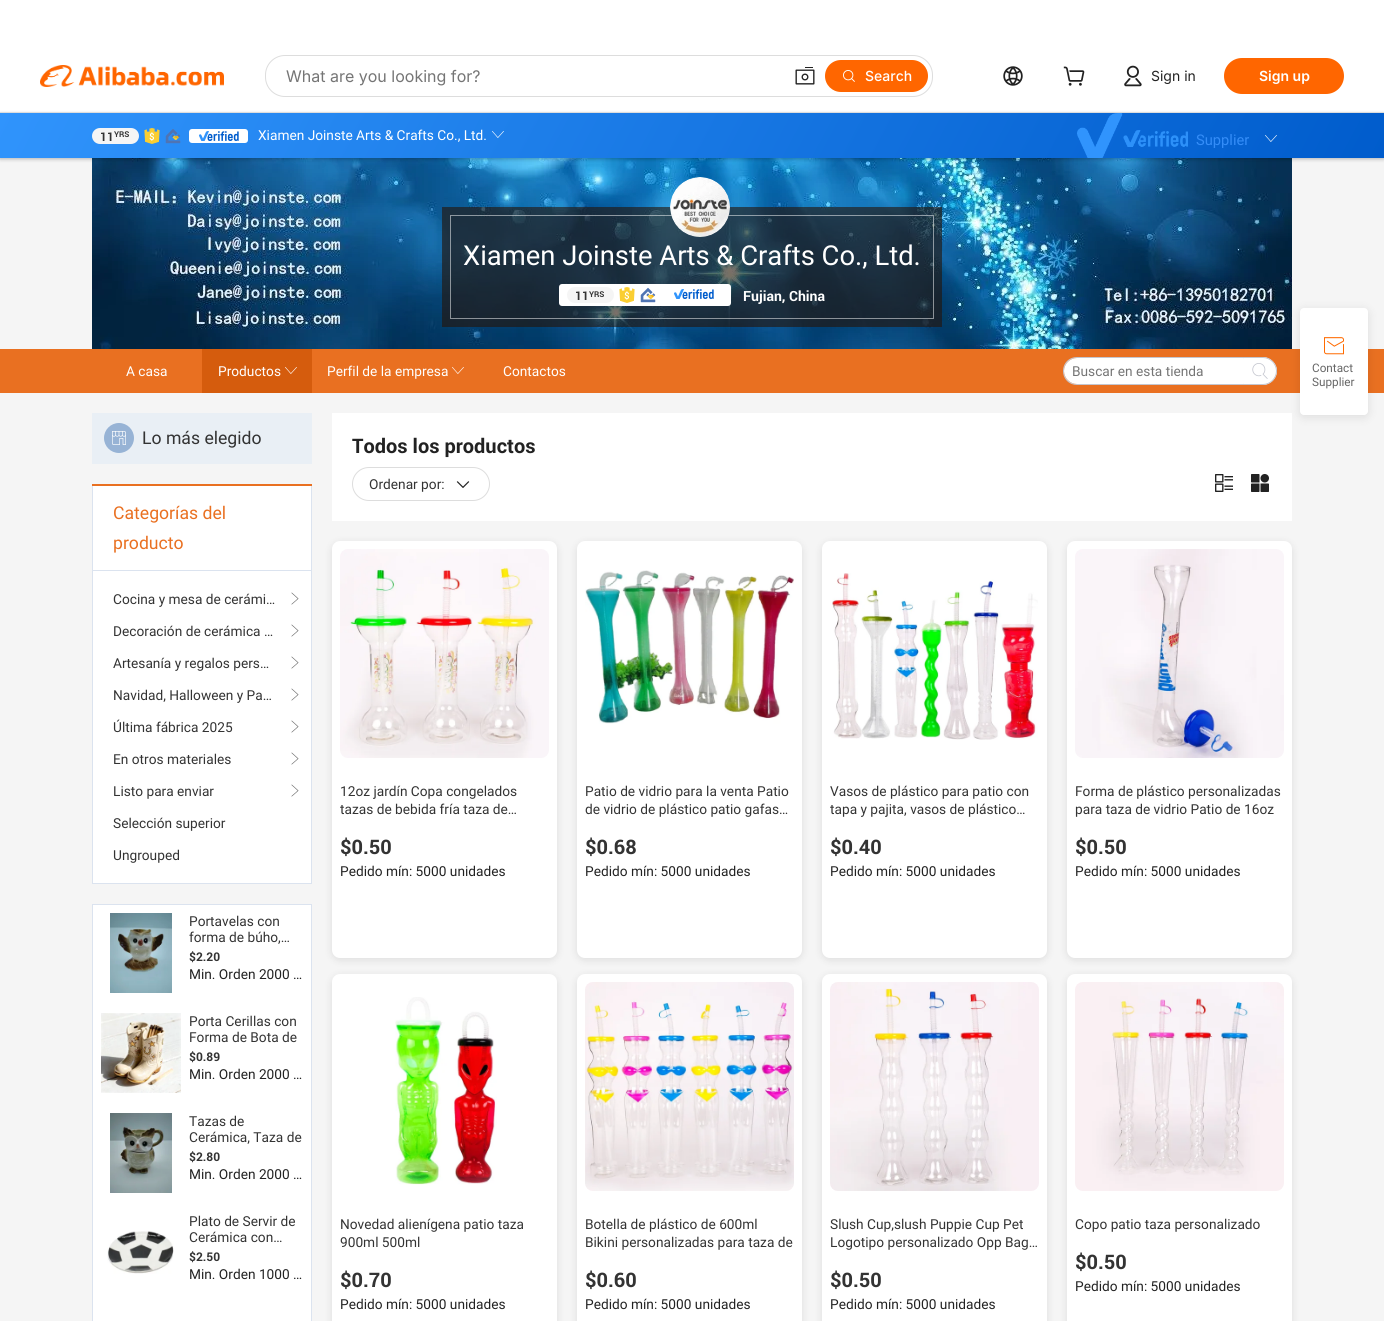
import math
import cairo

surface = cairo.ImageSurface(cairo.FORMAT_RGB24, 1384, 1321)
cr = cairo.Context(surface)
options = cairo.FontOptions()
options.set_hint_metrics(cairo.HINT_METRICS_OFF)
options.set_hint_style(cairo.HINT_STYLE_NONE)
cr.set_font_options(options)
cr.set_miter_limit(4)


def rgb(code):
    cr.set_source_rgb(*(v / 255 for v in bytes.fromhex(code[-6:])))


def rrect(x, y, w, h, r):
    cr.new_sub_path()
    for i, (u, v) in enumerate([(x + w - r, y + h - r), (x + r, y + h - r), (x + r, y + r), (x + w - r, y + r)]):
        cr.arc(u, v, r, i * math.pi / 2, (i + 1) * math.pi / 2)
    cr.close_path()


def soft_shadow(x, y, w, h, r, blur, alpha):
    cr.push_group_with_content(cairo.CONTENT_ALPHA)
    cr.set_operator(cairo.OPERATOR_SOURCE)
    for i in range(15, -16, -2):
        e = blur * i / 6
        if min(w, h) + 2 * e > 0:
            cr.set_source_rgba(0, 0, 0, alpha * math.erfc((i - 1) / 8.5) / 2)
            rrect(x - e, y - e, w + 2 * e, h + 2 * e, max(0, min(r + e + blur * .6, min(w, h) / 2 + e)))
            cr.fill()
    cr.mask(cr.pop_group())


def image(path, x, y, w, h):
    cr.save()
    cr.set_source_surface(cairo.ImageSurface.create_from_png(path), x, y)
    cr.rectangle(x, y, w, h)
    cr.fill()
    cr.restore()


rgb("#ffffff")
cr.paint()
rgb("#f5f5f5")
cr.rectangle(0, 158, 1384, 1163)
cr.fill()
image("img/13.png", 92, 158, 1200, 191)
rgb("#000000")
soft_shadow(0, 114, 1384, 45, 0, 2, 0.28)
rgb("#dddddd")
cr.rectangle(0, 112, 1384, 1)
cr.fill()
image("img/1.png", 40, 65, 184, 22)
rrect(265, 55, 668, 42, 20)
cr.fill()
rgb("#ffffff")
rrect(266, 56, 666, 40, 19)
cr.fill()
image("img/2.png", 795, 67, 20, 18)
rgb("#ff6600")
rrect(825, 60, 103, 32, 16)
cr.fill()
image("img/3.png", 843, 70, 12, 12)
image("img/4.png", 1003, 66, 20, 20)
image("img/5.png", 1063, 66, 22, 20)
image("img/6.png", 1124, 65, 18, 22)
rrect(1224, 58, 120, 36, 18)
cr.fill()
gradient = cairo.LinearGradient(143, -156, 1241, 427)
gradient.add_color_stop_rgba(0, 0.188, 0.58, 0.988, 1)
gradient.add_color_stop_rgba(1, 0, 0.361, 0.8, 1)
cr.set_source(gradient)
cr.rectangle(0, 113, 1384, 45)
cr.fill()
rgb("#f5f5f5")
rrect(92, 128, 47, 16, 8)
cr.fill()
image("img/7.png", 144, 128, 16, 16)
image("img/8.png", 165, 129, 16, 15)
rgb("#ffffff")
rrect(189, 129, 59, 14, 3)
cr.fill()
image("img/9.png", 199, 131, 40, 10)
image("img/10.png", 492, 131, 12, 7)
image("img/11.png", 1077, 113, 111, 45)
image("img/12.png", 1265, 135, 12, 7)
cr.set_source_rgba(0.914, 0.439, 0.129, 0.2)
cr.rectangle(442, 207, 500, 120)
cr.fill()
cr.set_source_rgba(0, 0, 0, 0.5)
cr.rectangle(442, 207, 500, 120)
cr.fill()
cr.rectangle(450.5, 215.5, 483, 103)
cr.set_source_rgba(1, 1, 1, 0.5)
cr.set_line_width(1)
cr.stroke()
image("img/14.png", 670, 177, 60, 60)
rgb("#ffffff")
rrect(559, 284, 172, 22, 3)
cr.fill()
rgb("#f5f5f5")
rrect(567, 287, 47, 16, 8)
cr.fill()
image("img/15.png", 619, 287, 16, 16)
image("img/16.png", 640, 287, 16, 16)
image("img/9.png", 674, 289, 40, 10)
rgb("#e97021")
cr.rectangle(0, 349, 1384, 44)
cr.fill()
rgb("#d55c0d")
cr.rectangle(202, 349, 110, 44)
cr.fill()
image("img/17.png", 285, 367, 12, 7)
image("img/18.png", 452, 367, 12, 7)
rgb("#c4c6cf")
cr.set_fill_rule(cairo.FILL_RULE_EVEN_ODD)
cr.new_path()
cr.move_to(1077, 357)
cr.line_to(1244, 357)
cr.line_to(1244, 385)
cr.line_to(1077, 385)
cr.curve_to(1069, 385, 1063, 379, 1063, 371)
cr.curve_to(1063, 363, 1069, 357, 1077, 357)
cr.close_path()
cr.move_to(1077, 358)
cr.line_to(1244, 358)
cr.line_to(1244, 384)
cr.line_to(1077, 384)
cr.curve_to(1070, 384, 1064, 378, 1064, 371)
cr.curve_to(1064, 364, 1070, 358, 1077, 358)
cr.close_path()
cr.fill()
rgb("#ffffff")
cr.new_path()
cr.move_to(1077, 358)
cr.line_to(1243.5, 358)
cr.curve_to(1244, 358, 1244, 358, 1244, 358.5)
cr.line_to(1244, 383.5)
cr.curve_to(1244, 384, 1244, 384, 1243.5, 384)
cr.line_to(1077, 384)
cr.curve_to(1070, 384, 1064, 378, 1064, 371)
cr.curve_to(1064, 364, 1070, 358, 1077, 358)
cr.close_path()
cr.fill()
cr.new_path()
cr.move_to(1244, 357)
cr.line_to(1263, 357)
cr.curve_to(1270.5, 357, 1277, 363.5, 1277, 371)
cr.curve_to(1277, 378.5, 1270.5, 385, 1263, 385)
cr.line_to(1244, 385)
cr.close_path()
cr.fill()
rgb("#c4c6cf")
cr.new_path()
cr.move_to(1244, 357)
cr.line_to(1263, 357)
cr.curve_to(1270.5, 357, 1277, 363.5, 1277, 371)
cr.curve_to(1277, 378.5, 1270.5, 385, 1263, 385)
cr.line_to(1244, 385)
cr.close_path()
cr.move_to(1244, 358)
cr.line_to(1263, 358)
cr.curve_to(1270, 358, 1276, 364, 1276, 371)
cr.curve_to(1276, 378, 1270, 384, 1263, 384)
cr.line_to(1244, 384)
cr.close_path()
cr.fill()
image("img/19.png", 1252, 363, 16, 16)
rgb("#e9eff5")
cr.rectangle(92, 413, 220, 51)
cr.fill()
rgb("#97b3d5")
cr.arc(119, 438, 15, 0, 2 * math.pi)
cr.fill()
image("img/20.png", 112, 431, 14, 14)
for x, y, w, h, color in [
    (93, 486, 218, 397, "#ffffff"),
    (92, 484, 220, 2, "#e97021"),
    (311, 486, 1, 398, "#dbe3ef"),
    (92, 883, 220, 1, "#dbe3ef"),
    (92, 486, 1, 398, "#dbe3ef"),
    (93, 570, 218, 1, "#dbe3ef"),
]:
    rgb(color)
    cr.rectangle(x, y, w, h)
    cr.fill()
image("img/21.png", 291, 592, 8, 13)
image("img/21.png", 291, 624, 8, 13)
image("img/21.png", 291, 656, 8, 13)
image("img/21.png", 291, 688, 8, 13)
image("img/21.png", 291, 720, 8, 13)
image("img/21.png", 291, 752, 8, 13)
image("img/21.png", 291, 784, 8, 13)
rgb("#ffffff")
cr.rectangle(92.5, 904.5, 219, 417)
cr.fill_preserve()
rgb("#dbe3ef")
cr.stroke()
image("img/22.png", 110, 913, 62, 80)
image("img/23.png", 101, 1013, 80, 80)
image("img/24.png", 110, 1113, 62, 80)
image("img/25.png", 107, 1231, 67, 43)
rgb("#ffffff")
cr.rectangle(332, 413, 960, 108)
cr.fill()
rrect(352.5, 467.5, 137, 33, 16.5)
rgb("#dddddd")
cr.stroke()
image("img/26.png", 456, 481, 14, 7)
image("img/27.png", 1215, 474, 18, 18)
image("img/28.png", 1251, 474, 18, 18)
rgb("#000000")
soft_shadow(332, 543, 225, 417, 8, 4, 0.1)
rgb("#ffffff")
rrect(332, 541, 225, 417, 8)
cr.fill()
image("img/29.png", 340, 549, 209, 209)
rgb("#000000")
soft_shadow(577, 543, 225, 417, 8, 4, 0.1)
rgb("#ffffff")
rrect(577, 541, 225, 417, 8)
cr.fill()
image("img/30.png", 585, 570, 209, 154)
rgb("#000000")
soft_shadow(822, 543, 225, 417, 8, 4, 0.1)
rgb("#ffffff")
rrect(822, 541, 225, 417, 8)
cr.fill()
image("img/31.png", 832, 573, 206, 167)
rgb("#000000")
soft_shadow(1067, 543, 225, 417, 8, 4, 0.1)
rgb("#ffffff")
rrect(1067, 541, 225, 417, 8)
cr.fill()
image("img/32.png", 1075, 549, 209, 209)
rgb("#000000")
soft_shadow(332, 976, 225, 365, 8, 4, 0.1)
rgb("#ffffff")
rrect(332, 974, 225, 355, 8)
cr.fill()
image("img/33.png", 395, 997, 102, 188)
rgb("#000000")
soft_shadow(577, 976, 225, 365, 8, 4, 0.1)
rgb("#ffffff")
rrect(577, 974, 225, 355, 8)
cr.fill()
image("img/34.png", 585, 982, 209, 209)
rgb("#000000")
soft_shadow(822, 976, 225, 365, 8, 4, 0.1)
rgb("#ffffff")
rrect(822, 974, 225, 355, 8)
cr.fill()
image("img/35.png", 830, 982, 209, 209)
rgb("#000000")
soft_shadow(1067, 976, 225, 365, 8, 4, 0.1)
rgb("#ffffff")
rrect(1067, 974, 225, 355, 8)
cr.fill()
image("img/36.png", 1075, 982, 209, 209)
rgb("#000000")
soft_shadow(1300, 310, 68, 107, 4, 5, 0.1)
rgb("#ffffff")
rrect(1300, 308, 68, 107, 4)
cr.fill()
image("img/37.png", 1324, 337, 20, 18)
cr.select_font_face("Inter")
cr.set_font_size(16)
rgb("#757575")
cr.move_to(286, 82)
cr.show_text("What are you looking for?")
cr.select_font_face("Inter Medium")
cr.set_font_size(14)
rgb("#ffffff")
cr.move_to(865, 81)
cr.show_text("Search")
cr.select_font_face("Inter")
rgb("#222222")
cr.move_to(1151, 81)
cr.show_text("Sign in")
cr.select_font_face("Inter SemiBold")
rgb("#ffffff")
cr.move_to(1259, 81)
cr.show_text("Sign up")
cr.select_font_face("Roboto", cairo.FONT_SLANT_NORMAL, cairo.FONT_WEIGHT_BOLD)
cr.set_font_size(12)
rgb("#333333")
cr.move_to(100, 141)
cr.show_text("11")
cr.set_font_size(8)
cr.move_to(114, 137)
cr.show_text("YRS")
cr.select_font_face("Roboto")
cr.set_font_size(14)
rgb("#ffffff")
cr.move_to(258, 140)
cr.show_text("Xiamen Joinste Arts & Crafts Co., Ltd.")
cr.set_font_size(15)
rgb("#348df8")
cr.move_to(1196, 145)
cr.show_text("Supplier")
cr.set_font_size(28)
rgb("#ffffff")
cr.move_to(463, 265)
cr.show_text("Xiamen Joinste Arts & Crafts Co., Ltd.")
cr.select_font_face("Roboto", cairo.FONT_SLANT_NORMAL, cairo.FONT_WEIGHT_BOLD)
cr.set_font_size(12)
rgb("#333333")
cr.move_to(575, 300)
cr.show_text("11")
cr.set_font_size(8)
cr.move_to(589, 297)
cr.show_text("YRS")
cr.set_font_size(14)
rgb("#ffffff")
cr.move_to(743, 301)
cr.show_text("Fujian, China")
cr.select_font_face("Roboto")
for x, y, s in [
    (126, 376, "A casa"),
    (218, 376, "Productos"),
    (327, 376, "Perfil de la empresa"),
    (503, 376, "Contactos"),
]:
    cr.move_to(x, y)
    cr.show_text(s)
rgb("#757575")
cr.move_to(1072, 376)
cr.show_text("Buscar en esta tienda")
cr.set_font_size(18)
rgb("#333333")
cr.move_to(142, 444)
cr.show_text("Lo más elegido")
rgb("#e97021")
cr.move_to(113, 519)
cr.show_text("Categorías del")
cr.move_to(113, 549)
cr.show_text("producto")
cr.set_font_size(14)
rgb("#333333")
for x, y, s in [
    (113, 604, "Cocina y mesa de cerámi…"),
    (113, 636, "Decoración de cerámica …"),
    (113, 668, "Artesanía y regalos pers…"),
    (113, 700, "Navidad, Halloween y Pa…"),
    (113, 732, "Última fábrica 2025"),
    (113, 764, "En otros materiales"),
    (113, 796, "Listo para enviar"),
    (113, 828, "Selección superior"),
    (113, 860, "Ungrouped"),
    (189, 926, "Portavelas con"),
    (189, 942, "forma de búho,…"),
]:
    cr.move_to(x, y)
    cr.show_text(s)
cr.select_font_face("Roboto", cairo.FONT_SLANT_NORMAL, cairo.FONT_WEIGHT_BOLD)
cr.set_font_size(12)
cr.move_to(189, 961)
cr.show_text("$2.20")
cr.select_font_face("Roboto")
cr.set_font_size(14)
rgb("#222222")
cr.move_to(189, 979)
cr.show_text("Min. Orden 2000 …")
rgb("#333333")
cr.move_to(189, 1026)
cr.show_text("Porta Cerillas con")
cr.move_to(189, 1042)
cr.show_text("Forma de Bota de")
cr.select_font_face("Roboto", cairo.FONT_SLANT_NORMAL, cairo.FONT_WEIGHT_BOLD)
cr.set_font_size(12)
cr.move_to(189, 1061)
cr.show_text("$0.89")
cr.select_font_face("Roboto")
cr.set_font_size(14)
rgb("#222222")
cr.move_to(189, 1079)
cr.show_text("Min. Orden 2000 …")
rgb("#333333")
cr.move_to(189, 1126)
cr.show_text("Tazas de")
cr.move_to(189, 1142)
cr.show_text("Cerámica, Taza de")
cr.select_font_face("Roboto", cairo.FONT_SLANT_NORMAL, cairo.FONT_WEIGHT_BOLD)
cr.set_font_size(12)
cr.move_to(189, 1161)
cr.show_text("$2.80")
cr.select_font_face("Roboto")
cr.set_font_size(14)
rgb("#222222")
cr.move_to(189, 1179)
cr.show_text("Min. Orden 2000 …")
rgb("#333333")
cr.move_to(189, 1226)
cr.show_text("Plato de Servir de")
cr.move_to(189, 1242)
cr.show_text("Cerámica con…")
cr.select_font_face("Roboto", cairo.FONT_SLANT_NORMAL, cairo.FONT_WEIGHT_BOLD)
cr.set_font_size(12)
cr.move_to(189, 1261)
cr.show_text("$2.50")
cr.select_font_face("Roboto")
cr.set_font_size(14)
rgb("#222222")
cr.move_to(189, 1279)
cr.show_text("Min. Orden 1000 …")
cr.select_font_face("Roboto", cairo.FONT_SLANT_NORMAL, cairo.FONT_WEIGHT_BOLD)
cr.set_font_size(20)
cr.move_to(352, 453)
cr.show_text("Todos los productos")
cr.select_font_face("Roboto")
cr.set_font_size(14)
rgb("#333333")
for x, y, s in [
    (369, 489, "Ordenar por:"),
    (340, 796, "12oz jardín Copa congelados"),
    (340, 814, "tazas de bebida fría taza de…"),
]:
    cr.move_to(x, y)
    cr.show_text(s)
cr.select_font_face("Roboto", cairo.FONT_SLANT_NORMAL, cairo.FONT_WEIGHT_BOLD)
cr.set_font_size(20)
cr.move_to(340, 854)
cr.show_text("$0.50")
cr.select_font_face("Roboto")
cr.set_font_size(14)
rgb("#222222")
cr.move_to(340, 876)
cr.show_text("Pedido mín: 5000 unidades")
rgb("#333333")
cr.move_to(585, 796)
cr.show_text("Patio de vidrio para la venta Patio")
cr.move_to(585, 814)
cr.show_text("de vidrio de plástico patio gafas…")
cr.select_font_face("Roboto", cairo.FONT_SLANT_NORMAL, cairo.FONT_WEIGHT_BOLD)
cr.set_font_size(20)
cr.move_to(585, 854)
cr.show_text("$0.68")
cr.select_font_face("Roboto")
cr.set_font_size(14)
rgb("#222222")
cr.move_to(585, 876)
cr.show_text("Pedido mín: 5000 unidades")
rgb("#333333")
cr.move_to(830, 796)
cr.show_text("Vasos de plástico para patio con")
cr.move_to(830, 814)
cr.show_text("tapa y pajita, vasos de plástico…")
cr.select_font_face("Roboto", cairo.FONT_SLANT_NORMAL, cairo.FONT_WEIGHT_BOLD)
cr.set_font_size(20)
cr.move_to(830, 854)
cr.show_text("$0.40")
cr.select_font_face("Roboto")
cr.set_font_size(14)
rgb("#222222")
cr.move_to(830, 876)
cr.show_text("Pedido mín: 5000 unidades")
rgb("#333333")
cr.move_to(1075, 796)
cr.show_text("Forma de plástico personalizadas")
cr.move_to(1075, 814)
cr.show_text("para taza de vidrio Patio de 16oz")
cr.select_font_face("Roboto", cairo.FONT_SLANT_NORMAL, cairo.FONT_WEIGHT_BOLD)
cr.set_font_size(20)
cr.move_to(1075, 854)
cr.show_text("$0.50")
cr.select_font_face("Roboto")
cr.set_font_size(14)
rgb("#222222")
cr.move_to(1075, 876)
cr.show_text("Pedido mín: 5000 unidades")
rgb("#333333")
cr.move_to(340, 1229)
cr.show_text("Novedad alienígena patio taza")
cr.move_to(340, 1247)
cr.show_text("900ml 500ml")
cr.select_font_face("Roboto", cairo.FONT_SLANT_NORMAL, cairo.FONT_WEIGHT_BOLD)
cr.set_font_size(20)
cr.move_to(340, 1287)
cr.show_text("$0.70")
cr.select_font_face("Roboto")
cr.set_font_size(14)
rgb("#222222")
cr.move_to(340, 1309)
cr.show_text("Pedido mín: 5000 unidades")
rgb("#333333")
cr.move_to(585, 1229)
cr.show_text("Botella de plástico de 600ml")
cr.move_to(585, 1247)
cr.show_text("Bikini personalizadas para taza de")
cr.select_font_face("Roboto", cairo.FONT_SLANT_NORMAL, cairo.FONT_WEIGHT_BOLD)
cr.set_font_size(20)
cr.move_to(585, 1287)
cr.show_text("$0.60")
cr.select_font_face("Roboto")
cr.set_font_size(14)
rgb("#222222")
cr.move_to(585, 1309)
cr.show_text("Pedido mín: 5000 unidades")
rgb("#333333")
cr.move_to(830, 1229)
cr.show_text("Slush Cup,slush Puppie Cup Pet")
cr.move_to(830, 1247)
cr.show_text("Logotipo personalizado Opp Bag…")
cr.select_font_face("Roboto", cairo.FONT_SLANT_NORMAL, cairo.FONT_WEIGHT_BOLD)
cr.set_font_size(20)
cr.move_to(830, 1287)
cr.show_text("$0.50")
cr.select_font_face("Roboto")
cr.set_font_size(14)
rgb("#222222")
cr.move_to(830, 1309)
cr.show_text("Pedido mín: 5000 unidades")
rgb("#333333")
cr.move_to(1075, 1229)
cr.show_text("Copo patio taza personalizado")
cr.select_font_face("Roboto", cairo.FONT_SLANT_NORMAL, cairo.FONT_WEIGHT_BOLD)
cr.set_font_size(20)
cr.move_to(1075, 1269)
cr.show_text("$0.50")
cr.select_font_face("Roboto")
cr.set_font_size(14)
rgb("#222222")
cr.move_to(1075, 1291)
cr.show_text("Pedido mín: 5000 unidades")
cr.set_font_size(12)
rgb("#666666")
cr.move_to(1312, 372)
cr.show_text("Contact")
cr.move_to(1312, 386)
cr.show_text("Supplier")
surface.write_to_png("page.png")
